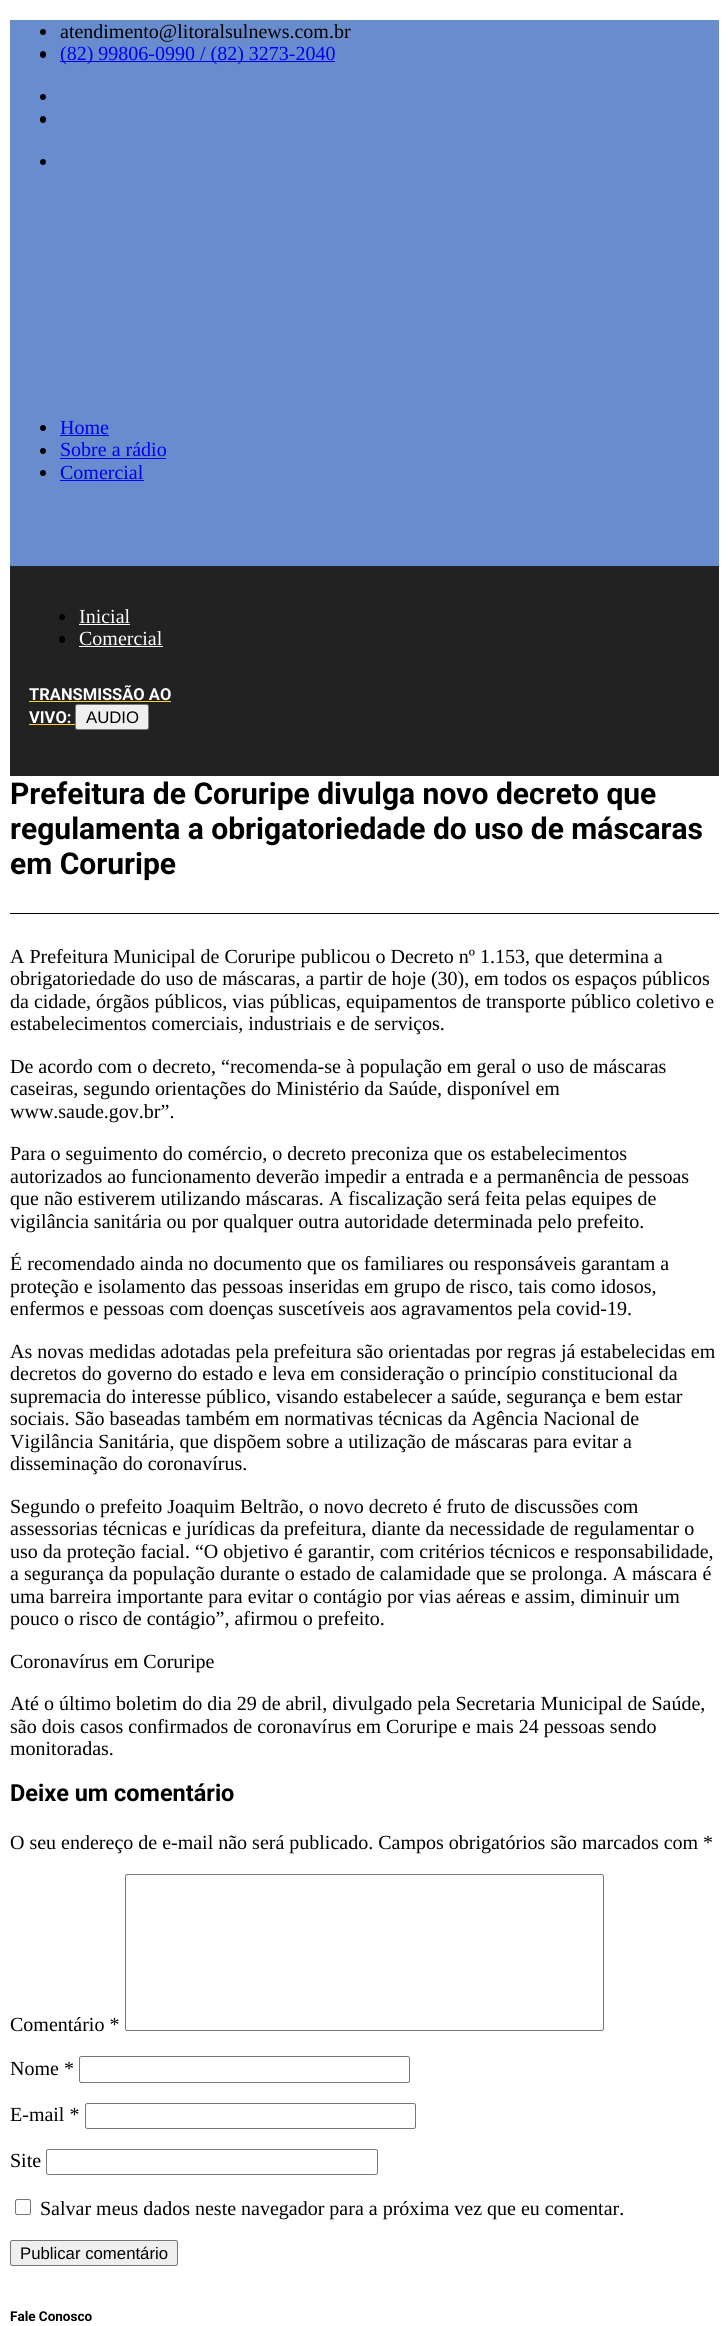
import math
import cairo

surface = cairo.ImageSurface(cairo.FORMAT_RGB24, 728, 2326)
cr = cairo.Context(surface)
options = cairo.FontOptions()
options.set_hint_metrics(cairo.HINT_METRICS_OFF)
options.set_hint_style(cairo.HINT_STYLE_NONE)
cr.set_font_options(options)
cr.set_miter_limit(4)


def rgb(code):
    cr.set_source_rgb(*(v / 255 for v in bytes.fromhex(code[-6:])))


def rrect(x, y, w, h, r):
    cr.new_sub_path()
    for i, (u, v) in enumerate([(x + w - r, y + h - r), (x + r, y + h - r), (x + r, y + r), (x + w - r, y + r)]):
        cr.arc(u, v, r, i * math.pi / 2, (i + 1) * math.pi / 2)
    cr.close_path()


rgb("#ffffff")
cr.paint()
rgb("#698cce")
cr.rectangle(10, 20, 709, 546)
cr.fill()
rgb("#000000")
cr.arc(43, 32, 3, 0, 2 * math.pi)
cr.fill()
rrect(40, 51, 6, 7, 3)
cr.fill()
rgb("#0000ee")
cr.rectangle(60, 61, 275, 1)
cr.fill()
rgb("#000000")
cr.arc(43, 97, 3, 0, 2 * math.pi)
cr.fill()
rrect(40, 116, 6, 7, 3)
cr.fill()
cr.arc(43, 162, 3, 0, 2 * math.pi)
cr.fill()
cr.arc(43, 428, 3, 0, 2 * math.pi)
cr.fill()
rgb("#0000ee")
cr.rectangle(60, 435, 49, 1)
cr.fill()
rgb("#000000")
cr.arc(43, 451, 3, 0, 2 * math.pi)
cr.fill()
rgb("#0000ee")
cr.rectangle(60, 458, 106, 1)
cr.fill()
rgb("#000000")
cr.arc(43, 473, 3, 0, 2 * math.pi)
cr.fill()
rgb("#0000ee")
cr.rectangle(60, 480, 84, 1)
cr.fill()
rgb("#222222")
cr.rectangle(10, 566, 709, 210)
cr.fill()
rgb("#000000")
cr.arc(62, 617, 3, 0, 2 * math.pi)
cr.fill()
rgb("#ffffff")
cr.rectangle(79, 624, 51, 1)
cr.fill()
rgb("#000000")
rrect(59, 636, 6, 7, 3)
cr.fill()
for x, y, w, h, color in [
    (79, 646, 84, 1, "#ffffff"),
    (29, 701, 142, 1, "#ffd42a"),
    (29, 724, 46, 1, "#ffd42a"),
]:
    rgb(color)
    cr.rectangle(x, y, w, h)
    cr.fill()
rgb("#efefef")
rrect(75.5, 704.5, 73, 25, 2)
cr.fill_preserve()
rgb("#767676")
cr.set_line_width(1)
cr.stroke()
rgb("#000000")
cr.rectangle(10, 913, 709, 1)
cr.fill()
rrect(125.5, 1874.5, 478, 156, 2)
rgb("#767676")
cr.stroke()
rrect(79.5, 2056.5, 330, 26, 2)
cr.stroke()
rrect(85.5, 2103.5, 330, 25, 2)
cr.stroke()
rrect(46.5, 2149.5, 331, 25, 2)
cr.stroke()
rrect(15.5, 2199.5, 15, 15, 2)
cr.stroke()
rgb("#efefef")
rrect(10.5, 2240.5, 167, 25, 2)
cr.fill_preserve()
rgb("#767676")
cr.stroke()
cr.select_font_face("Liberation Serif")
cr.set_font_size(20)
rgb("#000000")
cr.move_to(60, 38)
cr.show_text("atendimento@litoralsulnews.com.br")
rgb("#0000ee")
for x, y, s in [
    (60, 60, "(82) 99806-0990 / (82) 3273-2040"),
    (60, 434, "Home"),
    (60, 456, "Sobre a rádio"),
    (60, 479, "Comercial"),
]:
    cr.move_to(x, y)
    cr.show_text(s)
rgb("#ffffff")
cr.move_to(79, 623)
cr.show_text("Inicial")
cr.move_to(79, 645)
cr.show_text("Comercial")
cr.select_font_face("Roboto", cairo.FONT_SLANT_NORMAL, cairo.FONT_WEIGHT_BOLD)
cr.set_font_size(16.5)
cr.move_to(29, 700)
cr.show_text("TRANSMISSÃO AO")
cr.move_to(29, 723)
cr.show_text("VIVO:")
cr.select_font_face("Liberation Sans")
cr.set_font_size(16.75)
rgb("#000000")
cr.move_to(86, 723)
cr.show_text("AUDIO")
cr.select_font_face("Roboto", cairo.FONT_SLANT_NORMAL, cairo.FONT_WEIGHT_BOLD)
cr.set_font_size(30)
for x, y, s in [
    (10, 804, "Prefeitura de Coruripe divulga novo decreto que"),
    (10, 839, "regulamenta a obrigatoriedade do uso de máscaras"),
    (10, 874, "em Coruripe"),
]:
    cr.move_to(x, y)
    cr.show_text(s)
cr.select_font_face("Liberation Serif")
cr.set_font_size(20)
for x, y, s in [
    (10, 963, "A Prefeitura Municipal de Coruripe publicou o Decreto nº 1.153, que determina a"),
    (10, 985, "obrigatoriedade do uso de máscaras, a partir de hoje (30), em todos os espaços públicos"),
    (10, 1008, "da cidade, órgãos públicos, vias públicas, equipamentos de transporte público coletivo e"),
    (10, 1030, "estabelecimentos comerciais, industriais e de serviços."),
    (10, 1073, "De acordo com o decreto, “recomenda-se à população em geral o uso de máscaras"),
    (10, 1095, "caseiras, segundo orientações do Ministério da Saúde, disponível em"),
    (10, 1118, "www.saude.gov.br”."),
    (10, 1160, "Para o seguimento do comércio, o decreto preconiza que os estabelecimentos"),
    (10, 1183, "autorizados ao funcionamento deverão impedir a entrada e a permanência de pessoas"),
    (10, 1205, "que não estiverem utilizando máscaras. A fiscalização será feita pelas equipes de"),
    (10, 1228, "vigilância sanitária ou por qualquer outra autoridade determinada pelo prefeito."),
    (10, 1270, "É recomendado ainda no documento que os familiares ou responsáveis garantam a"),
    (10, 1293, "proteção e isolamento das pessoas inseridas em grupo de risco, tais como idosos,"),
    (10, 1315, "enfermos e pessoas com doenças suscetíveis aos agravamentos pela covid-19."),
    (10, 1358, "As novas medidas adotadas pela prefeitura são orientadas por regras já estabelecidas em"),
    (10, 1380, "decretos do governo do estado e leva em consideração o princípio constitucional da"),
    (10, 1403, "supremacia do interesse público, visando estabelecer a saúde, segurança e bem estar"),
    (10, 1425, "sociais. São baseadas também em normativas técnicas da Agência Nacional de"),
    (10, 1448, "Vigilância Sanitária, que dispõem sobre a utilização de máscaras para evitar a"),
    (10, 1470, "disseminação do coronavírus."),
    (10, 1513, "Segundo o prefeito Joaquim Beltrão, o novo decreto é fruto de discussões com"),
    (10, 1535, "assessorias técnicas e jurídicas da prefeitura, diante da necessidade de regulamentar o"),
    (10, 1558, "uso da proteção facial. “O objetivo é garantir, com critérios técnicos e responsabilidade,"),
    (10, 1580, "a segurança da população durante o estado de calamidade que se prolonga. A máscara é"),
    (10, 1603, "uma barreira importante para evitar o contágio por vias aéreas e assim, diminuir um"),
    (10, 1625, "pouco o risco de contágio”, afirmou o prefeito."),
    (10, 1668, "Coronavírus em Coruripe"),
    (10, 1710, "Até o último boletim do dia 29 de abril, divulgado pela Secretaria Municipal de Saúde,"),
    (10, 1733, "são dois casos confirmados de coronavírus em Coruripe e mais 24 pessoas sendo"),
    (10, 1755, "monitoradas."),
]:
    cr.move_to(x, y)
    cr.show_text(s)
cr.select_font_face("Roboto", cairo.FONT_SLANT_NORMAL, cairo.FONT_WEIGHT_BOLD)
cr.set_font_size(23.5)
cr.move_to(10, 1801)
cr.show_text("Deixe um comentário")
cr.select_font_face("Liberation Serif")
cr.set_font_size(20)
for x, y, s in [
    (10, 1849, "O seu endereço de e-mail não será publicado. Campos obrigatórios são marcados com *"),
    (10, 2031, "Comentário *"),
    (10, 2075, "Nome *"),
    (10, 2121, "E-mail *"),
    (10, 2167, "Site"),
    (40, 2215, "Salvar meus dados neste navegador para a próxima vez que eu comentar."),
]:
    cr.move_to(x, y)
    cr.show_text(s)
cr.select_font_face("Liberation Sans")
cr.set_font_size(16.75)
cr.move_to(20, 2259)
cr.show_text("Publicar comentário")
cr.select_font_face("Roboto", cairo.FONT_SLANT_NORMAL, cairo.FONT_WEIGHT_BOLD)
cr.set_font_size(13.5)
cr.move_to(10, 2321)
cr.show_text("Fale Conosco")
surface.write_to_png("page.png")
